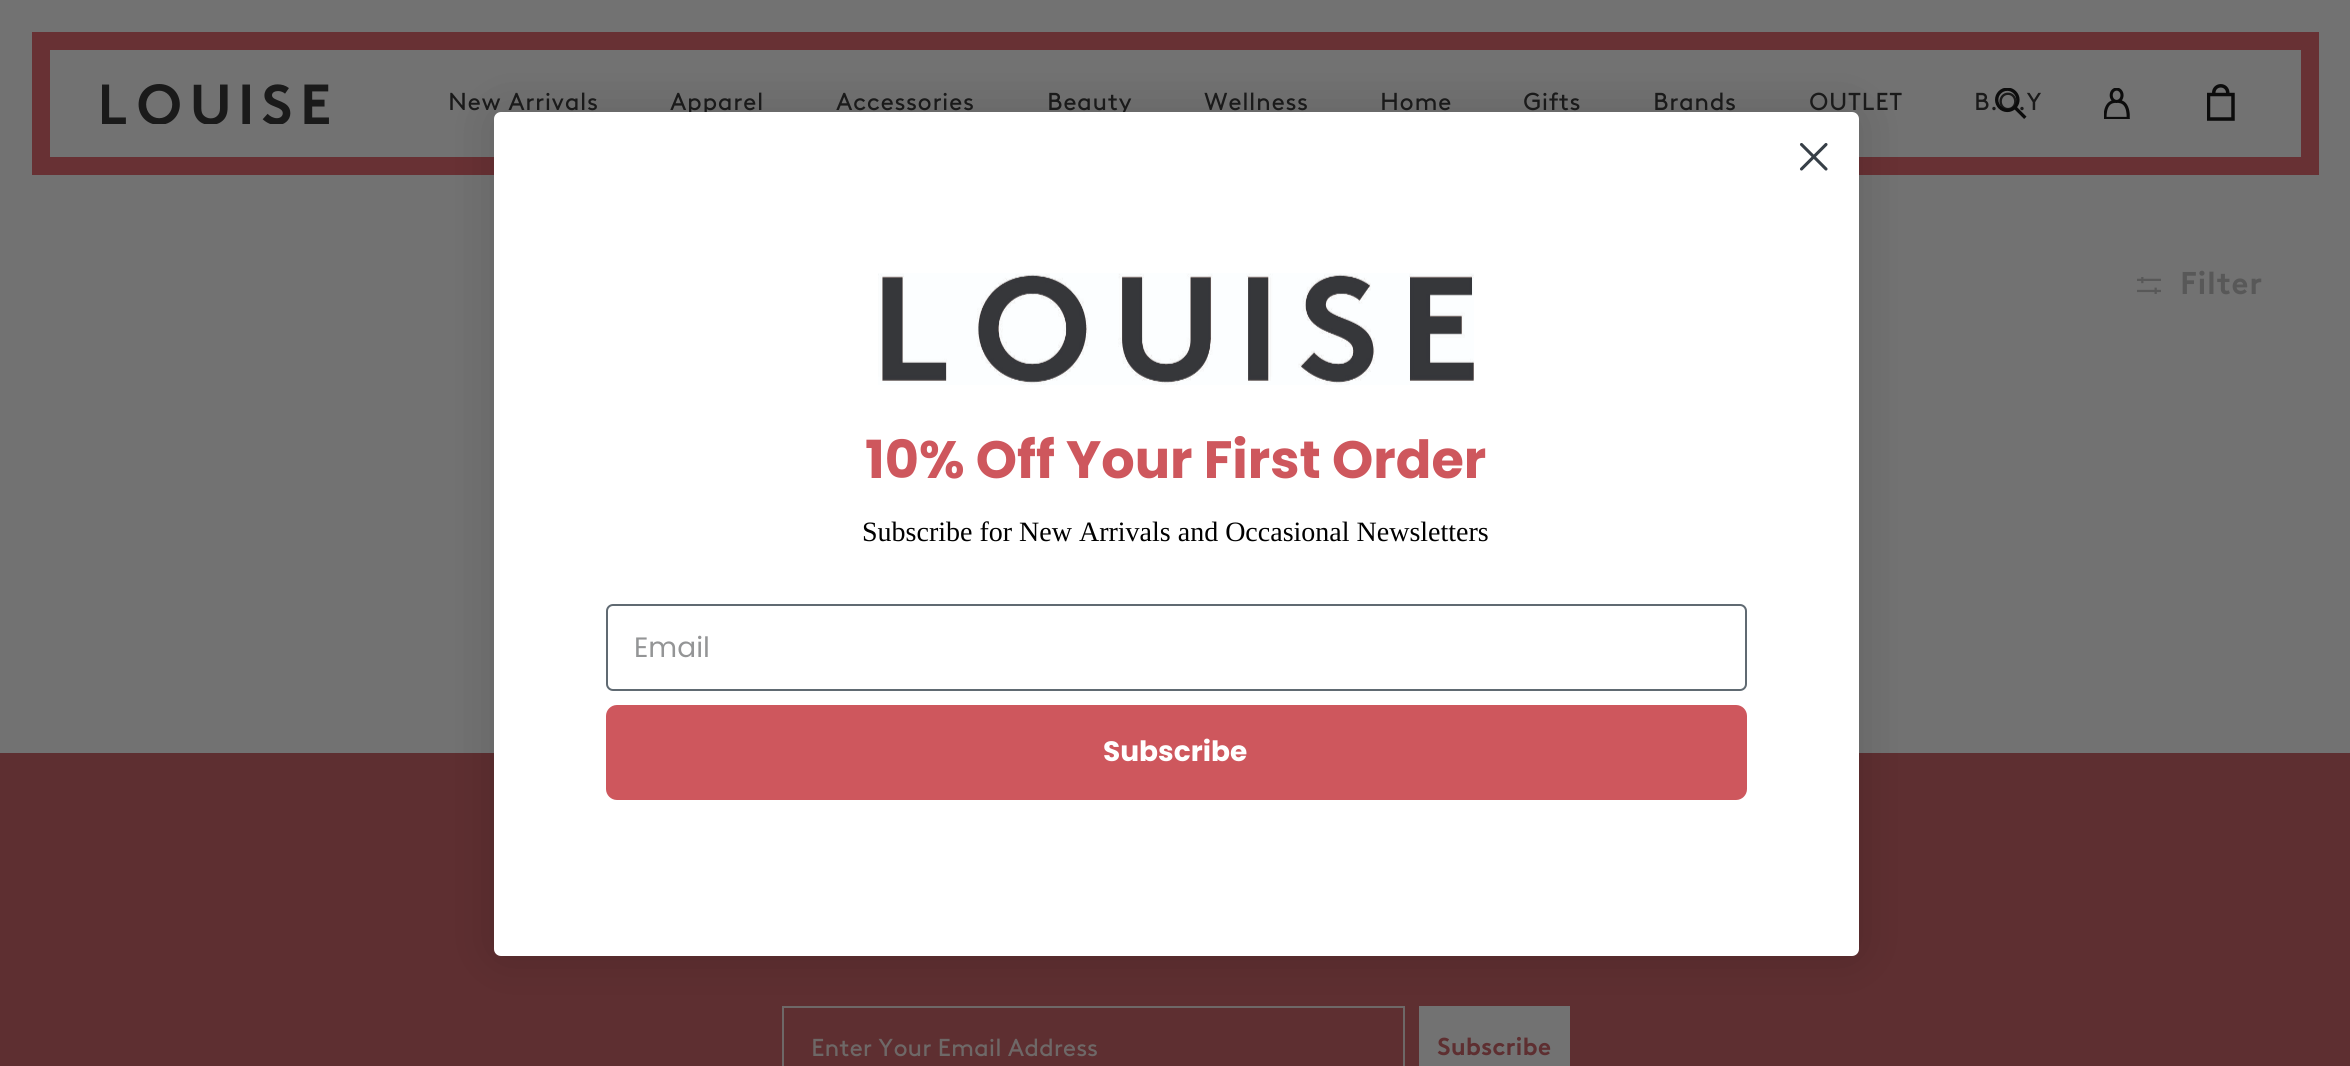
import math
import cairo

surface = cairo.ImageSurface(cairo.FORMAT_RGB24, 2350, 1066)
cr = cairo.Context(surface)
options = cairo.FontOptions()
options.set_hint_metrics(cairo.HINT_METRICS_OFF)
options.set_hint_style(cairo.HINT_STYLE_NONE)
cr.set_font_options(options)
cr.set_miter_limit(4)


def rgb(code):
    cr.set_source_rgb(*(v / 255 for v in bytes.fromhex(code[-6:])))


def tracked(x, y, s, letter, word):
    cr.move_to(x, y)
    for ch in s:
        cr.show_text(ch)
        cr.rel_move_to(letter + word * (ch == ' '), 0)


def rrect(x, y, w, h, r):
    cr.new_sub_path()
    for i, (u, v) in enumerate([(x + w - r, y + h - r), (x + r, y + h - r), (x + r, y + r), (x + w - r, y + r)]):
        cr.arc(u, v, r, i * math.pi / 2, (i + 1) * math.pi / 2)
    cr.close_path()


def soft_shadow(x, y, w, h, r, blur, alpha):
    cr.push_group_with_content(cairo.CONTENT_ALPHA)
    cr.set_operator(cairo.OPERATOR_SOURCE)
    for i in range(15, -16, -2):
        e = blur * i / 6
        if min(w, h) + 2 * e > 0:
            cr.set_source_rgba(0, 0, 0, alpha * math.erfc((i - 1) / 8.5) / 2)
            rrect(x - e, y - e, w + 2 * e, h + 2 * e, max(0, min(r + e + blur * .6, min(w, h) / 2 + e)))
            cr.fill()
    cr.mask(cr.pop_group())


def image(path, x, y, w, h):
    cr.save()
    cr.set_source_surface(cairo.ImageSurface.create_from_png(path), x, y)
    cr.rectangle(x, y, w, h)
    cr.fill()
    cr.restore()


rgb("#727272")
cr.paint()
cr.rectangle(41, 41, 2269, 125)
rgb("#683134")
cr.set_line_width(18)
cr.stroke()
image("img/1.png", 102, 84, 227, 40)
image("img/3.png", 2104, 88, 26, 31)
image("img/4.png", 2207, 84, 28, 37)
image("img/5.png", 2137, 277, 24, 17)
rgb("#5e2f31")
cr.rectangle(0, 753, 2350, 313)
cr.fill()
cr.rectangle(783, 1007, 621, 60)
rgb("#6e6867")
cr.set_line_width(2)
cr.stroke()
rgb("#727272")
cr.rectangle(1419, 1006, 151, 60)
cr.fill()
rgb("#000000")
soft_shadow(494, 112, 1365, 844, 7, 26, 0.15)
cr.select_font_face("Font")
cr.set_font_size(24.5)
rgb("#1a1a1a")
for x, y, s in [
    (448, 110, "New Arrivals"),
    (670, 110, "Apparel"),
    (836, 110, "Accessories"),
    (1047, 110, "Beauty"),
    (1204, 110, "Wellness"),
    (1380, 110, "Home"),
    (1523, 110, "Gifts"),
    (1653, 110, "Brands"),
    (1809, 110, "OUTLET"),
    (1974, 110, "B.O.Y"),
]:
    tracked(x, y, s, 0.6, 0)
image("img/2.png", 1995, 88, 32, 31)
cr.select_font_face("Font", cairo.FONT_SLANT_NORMAL, cairo.FONT_WEIGHT_BOLD)
cr.set_font_size(31.5)
rgb("#585858")
tracked(2180, 294, "Filter", 0.6, 0)
rgb("#ffffff")
rrect(494, 112, 1365, 844, 7)
cr.fill()
cr.new_path()
cr.move_to(1801.5, 144.5)
cr.line_to(1826, 169)
cr.move_to(1801.5, 169)
cr.line_to(1826, 144.5)
cr.close_path()
rgb("#373f47")
cr.set_line_width(3.1)
cr.set_line_cap(cairo.LINE_CAP_ROUND)
cr.set_line_join(cairo.LINE_JOIN_ROUND)
cr.stroke()
image("img/6.png", 878, 273, 596, 112)
cr.select_font_face("Poppins", cairo.FONT_SLANT_NORMAL, cairo.FONT_WEIGHT_BOLD)
cr.set_font_size(52.5)
rgb("#ce575d")
cr.move_to(865, 478)
cr.show_text("10% Off Your First Order")
cr.select_font_face("Liberation Serif")
cr.set_font_size(28)
rgb("#000000")
cr.move_to(862, 541)
cr.show_text("Subscribe for New Arrivals and Occasional Newsletters")
rrect(607, 605, 1139, 85, 6)
rgb("#606a72")
cr.set_line_width(2)
cr.set_line_cap(cairo.LINE_CAP_BUTT)
cr.set_line_join(cairo.LINE_JOIN_MITER)
cr.stroke()
cr.select_font_face("Poppins")
rgb("#949596")
cr.move_to(634, 657)
cr.show_text("Email")
rgb("#ce575d")
rrect(606, 705, 1141, 95, 11)
cr.fill()
cr.select_font_face("Poppins", cairo.FONT_SLANT_NORMAL, cairo.FONT_WEIGHT_BOLD)
rgb("#ffffff")
cr.move_to(1103, 761)
cr.show_text("Subscribe")
cr.select_font_face("Font")
cr.set_font_size(24.5)
rgb("#6e6867")
cr.move_to(811, 1056)
cr.show_text("Enter Your Email Address")
cr.select_font_face("Font", cairo.FONT_SLANT_NORMAL, cairo.FONT_WEIGHT_BOLD)
rgb("#5e2f31")
cr.move_to(1437, 1055)
cr.show_text("Subscribe")
surface.write_to_png("page.png")
